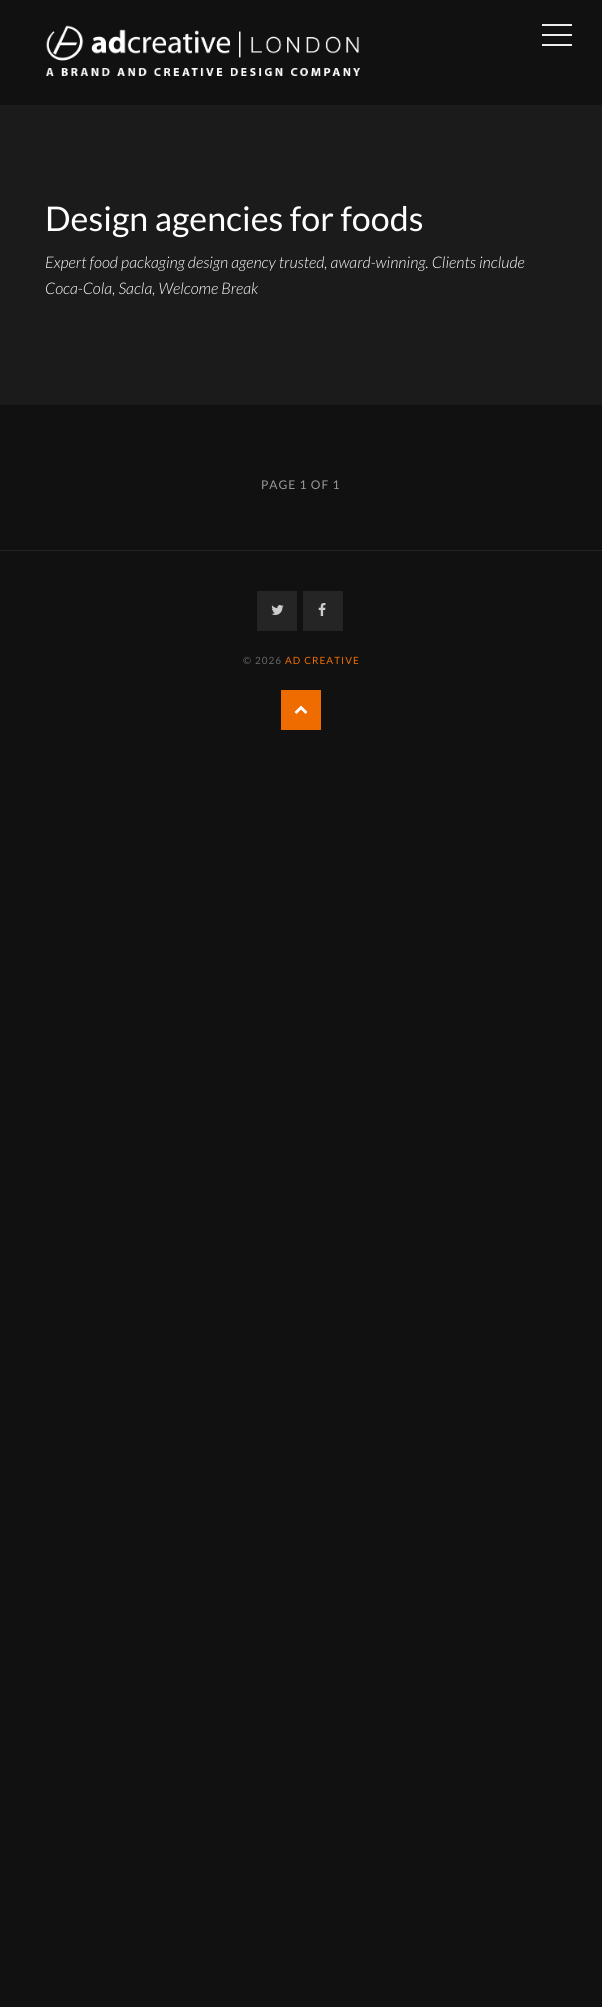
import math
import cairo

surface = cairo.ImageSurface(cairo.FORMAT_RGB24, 602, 2007)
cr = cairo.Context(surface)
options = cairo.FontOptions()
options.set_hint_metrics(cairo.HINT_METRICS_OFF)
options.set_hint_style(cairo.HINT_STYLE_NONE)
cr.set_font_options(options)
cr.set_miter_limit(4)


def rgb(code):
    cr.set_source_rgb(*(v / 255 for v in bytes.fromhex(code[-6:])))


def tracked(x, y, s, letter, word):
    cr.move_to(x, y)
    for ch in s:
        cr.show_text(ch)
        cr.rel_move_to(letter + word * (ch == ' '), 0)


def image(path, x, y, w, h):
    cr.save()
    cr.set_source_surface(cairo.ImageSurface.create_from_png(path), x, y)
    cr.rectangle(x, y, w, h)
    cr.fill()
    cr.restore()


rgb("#111111")
cr.paint()
image("img/1.png", 45, 25, 316, 51)
for x, y, w, h, color in [
    (542, 34, 30, 2, "#eeeeee"),
    (542, 24, 30, 2, "#eeeeee"),
    (542, 44, 30, 2, "#eeeeee"),
    (0, 105, 602, 300, "#1b1b1b"),
    (0, 550, 602, 1, "#252525"),
    (257, 591, 40, 40, "#252525"),
]:
    rgb(color)
    cr.rectangle(x, y, w, h)
    cr.fill()
image("img/2.png", 271, 605, 13, 10)
cr.rectangle(303, 591, 40, 40)
cr.fill()
image("img/3.png", 318, 603, 8, 13)
rgb("#ef6c00")
cr.rectangle(281, 690, 40, 40)
cr.fill()
image("img/4.png", 294, 705, 14, 9)
cr.select_font_face("Lato")
cr.set_font_size(34)
rgb("#ffffff")
cr.move_to(45, 231)
cr.show_text("Design agencies for foods")
cr.select_font_face("Lato Light", cairo.FONT_SLANT_ITALIC)
cr.set_font_size(16)
cr.move_to(45, 268)
cr.show_text("Expert food packaging design agency trusted, award-winning. Clients include")
cr.move_to(45, 294)
cr.show_text("Coca-Cola, Sacla, Welcome Break")
cr.select_font_face("Lato")
cr.set_font_size(12)
rgb("#999999")
tracked(261, 489, "PAGE 1 OF 1", 1, 0)
cr.set_font_size(10)
rgb("#666666")
tracked(243, 664, "© 2026", 1, 0)
rgb("#ef6c00")
tracked(285, 664, "AD CREATIVE", 1, 0)
surface.write_to_png("page.png")
